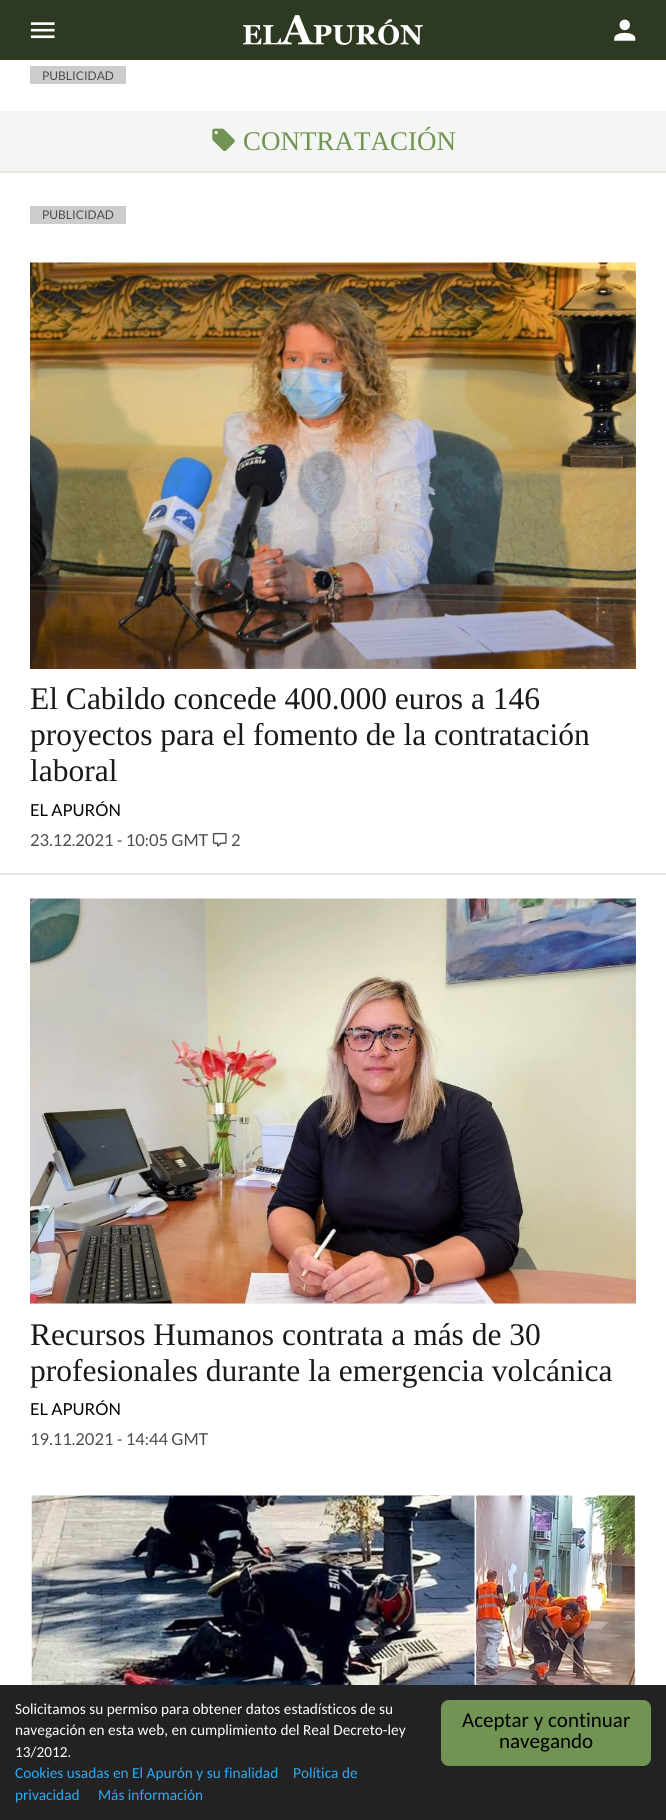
import math
import cairo

surface = cairo.ImageSurface(cairo.FORMAT_RGB24, 666, 1820)
cr = cairo.Context(surface)
options = cairo.FontOptions()
options.set_hint_metrics(cairo.HINT_METRICS_OFF)
options.set_hint_style(cairo.HINT_STYLE_NONE)
cr.set_font_options(options)
cr.set_miter_limit(4)


def rgb(code):
    cr.set_source_rgb(*(v / 255 for v in bytes.fromhex(code[-6:])))


def rrect(x, y, w, h, r):
    cr.new_sub_path()
    for i, (u, v) in enumerate([(x + w - r, y + h - r), (x + r, y + h - r), (x + r, y + r), (x + w - r, y + r)]):
        cr.arc(u, v, r, i * math.pi / 2, (i + 1) * math.pi / 2)
    cr.close_path()


def image(path, x, y, w, h):
    cr.save()
    cr.set_source_surface(cairo.ImageSurface.create_from_png(path), x, y)
    cr.rectangle(x, y, w, h)
    cr.fill()
    cr.restore()


rgb("#ffffff")
cr.paint()
rgb("#2d3a21")
cr.rectangle(0, 0, 666, 60)
cr.fill()
image("img/1.png", 30, 22, 25, 17)
image("img/2.png", 243, 15, 180, 30)
image("img/3.png", 614, 19, 22, 22)
for x, y, w, h, color in [
    (30, 66, 96, 18, "#cccccc"),
    (0, 111, 666, 60, "#f4f6f3"),
    (0, 171, 666, 2, "#e2e9dc"),
]:
    rgb(color)
    cr.rectangle(x, y, w, h)
    cr.fill()
image("img/4.png", 212, 128, 23, 24)
rgb("#cccccc")
cr.rectangle(30, 206, 96, 18)
cr.fill()
rgb("#e5e5e5")
cr.rectangle(0, 873, 666, 2)
cr.fill()
image("img/5.png", 30, 262, 606, 407)
image("img/6.png", 212, 832, 15, 15)
rgb("#f8f8f8")
cr.rectangle(30, 1303, 606, 1)
cr.fill()
image("img/7.png", 30, 898, 606, 406)
image("img/8.png", 30, 1495, 606, 190)
rgb("#222222")
cr.rectangle(0, 1685, 666, 135)
cr.fill()
rgb("#719354")
rrect(441, 1700, 210, 66, 8)
cr.fill()
cr.select_font_face("Lato")
cr.set_font_size(12)
rgb("#4c4c4c")
cr.move_to(42, 80)
cr.show_text("PUBLICIDAD")
cr.select_font_face("Liberation Serif")
cr.set_font_size(27)
rgb("#719354")
cr.move_to(243, 150)
cr.show_text("CONTRATACIÓN")
cr.select_font_face("Lato")
cr.set_font_size(12)
rgb("#4c4c4c")
cr.move_to(42, 219)
cr.show_text("PUBLICIDAD")
cr.select_font_face("Liberation Serif")
cr.set_font_size(31.5)
rgb("#191919")
for x, y, s in [
    (30, 709, "El Cabildo concede 400.000 euros a 146"),
    (30, 745, "proyectos para el fomento de la contratación"),
    (30, 781, "laboral"),
]:
    cr.move_to(x, y)
    cr.show_text(s)
cr.select_font_face("Lato")
cr.set_font_size(16.5)
rgb("#000000")
cr.move_to(30, 816)
cr.show_text("EL APURÓN")
rgb("#4c4c4c")
cr.move_to(30, 846)
cr.show_text("23.12.2021 - 10:05 GMT")
cr.move_to(231, 846)
cr.show_text("2")
cr.select_font_face("Liberation Serif")
cr.set_font_size(31.5)
rgb("#191919")
cr.move_to(30, 1345)
cr.show_text("Recursos Humanos contrata a más de 30")
cr.move_to(30, 1381)
cr.show_text("profesionales durante la emergencia volcánica")
cr.select_font_face("Lato")
cr.set_font_size(16.5)
rgb("#000000")
cr.move_to(30, 1415)
cr.show_text("EL APURÓN")
rgb("#4c4c4c")
cr.move_to(30, 1445)
cr.show_text("19.11.2021 - 14:44 GMT")
cr.select_font_face("Carlito")
cr.set_font_size(15.3)
rgb("#ffffff")
for x, y, s in [
    (15, 1714, "Solicitamos su permiso para obtener datos estadísticos de su"),
    (15, 1735, "navegación en esta web, en cumplimiento del Real Decreto-ley"),
    (15, 1757, "13/2012."),
]:
    cr.move_to(x, y)
    cr.show_text(s)
rgb("#31a8f0")
for x, y, s in [
    (15, 1778, "Cookies usadas en El Apurón y su finalidad"),
    (293, 1778, "Política de"),
    (15, 1800, "privacidad"),
    (98, 1800, "Más información"),
]:
    cr.move_to(x, y)
    cr.show_text(s)
cr.set_font_size(21)
rgb("#000000")
cr.move_to(462, 1727)
cr.show_text("Aceptar y continuar")
cr.move_to(499, 1748)
cr.show_text("navegando")
surface.write_to_png("page.png")
